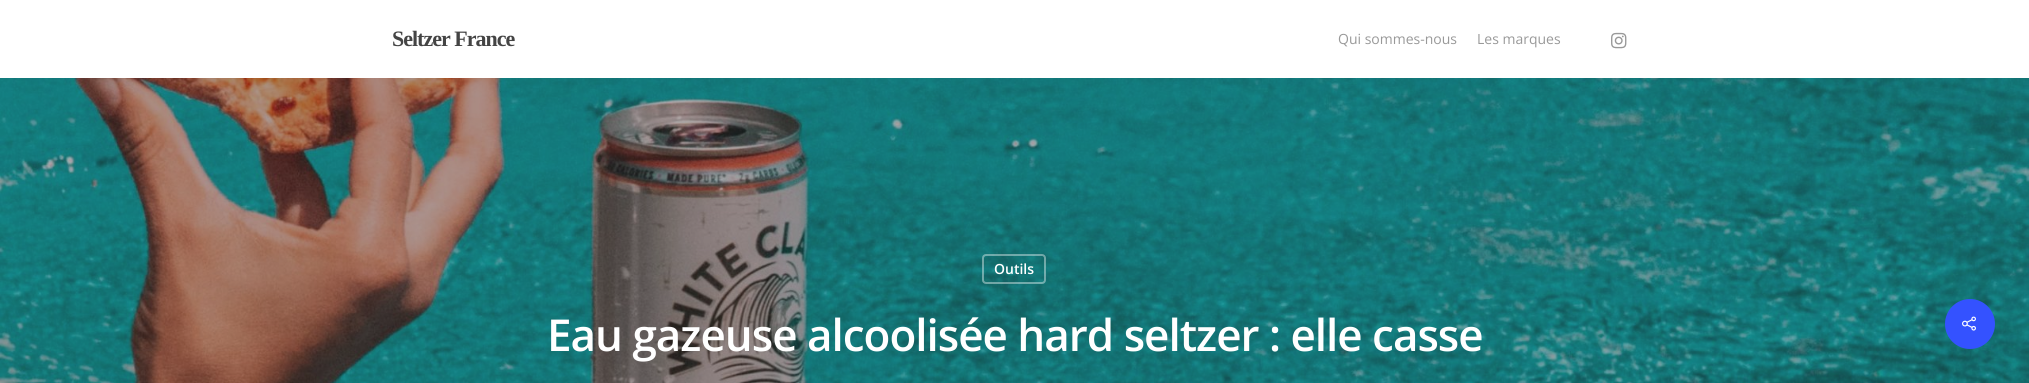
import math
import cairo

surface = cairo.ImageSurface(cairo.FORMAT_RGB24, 2029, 383)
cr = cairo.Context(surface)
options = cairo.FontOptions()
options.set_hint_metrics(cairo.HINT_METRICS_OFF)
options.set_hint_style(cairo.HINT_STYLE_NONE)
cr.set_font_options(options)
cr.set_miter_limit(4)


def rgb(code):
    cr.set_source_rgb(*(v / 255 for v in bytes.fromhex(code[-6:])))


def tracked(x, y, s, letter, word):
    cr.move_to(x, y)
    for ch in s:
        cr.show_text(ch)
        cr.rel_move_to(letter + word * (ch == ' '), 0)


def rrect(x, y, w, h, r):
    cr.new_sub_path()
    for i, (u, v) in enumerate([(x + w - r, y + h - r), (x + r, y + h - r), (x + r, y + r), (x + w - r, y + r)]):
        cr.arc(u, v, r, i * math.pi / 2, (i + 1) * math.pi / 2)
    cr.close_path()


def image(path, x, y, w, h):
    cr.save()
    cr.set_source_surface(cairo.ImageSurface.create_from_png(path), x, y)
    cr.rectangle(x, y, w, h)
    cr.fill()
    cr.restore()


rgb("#ffffff")
cr.paint()
image("img/1.png", 1611, 32, 16, 17)
image("img/2.png", 0, 78, 2029, 305)
rrect(983, 255, 62, 28, 3)
cr.set_source_rgba(1, 1, 1, 0.4)
cr.stroke()
rgb("#3452ff")
cr.arc(1970, 324, 25, 0, 2 * math.pi)
cr.fill()
image("img/3.png", 1962, 316, 14, 15)
cr.select_font_face("Liberation Serif", cairo.FONT_SLANT_NORMAL, cairo.FONT_WEIGHT_BOLD)
cr.set_font_size(22)
rgb("#444444")
tracked(392, 46, "Seltzer France", -1, 0)
cr.select_font_face("Open Sans")
cr.set_font_size(14)
rgb("#999999")
cr.move_to(1338, 44)
cr.show_text("Qui sommes-nous")
cr.move_to(1477, 44)
cr.show_text("Les marques")
cr.select_font_face("Open Sans SemiBold")
rgb("#ffffff")
cr.move_to(994, 274)
cr.show_text("Outils")
cr.set_font_size(44)
tracked(547, 351, "Eau gazeuse alcoolisée hard seltzer : elle casse", -1, 0)
surface.write_to_png("page.png")
